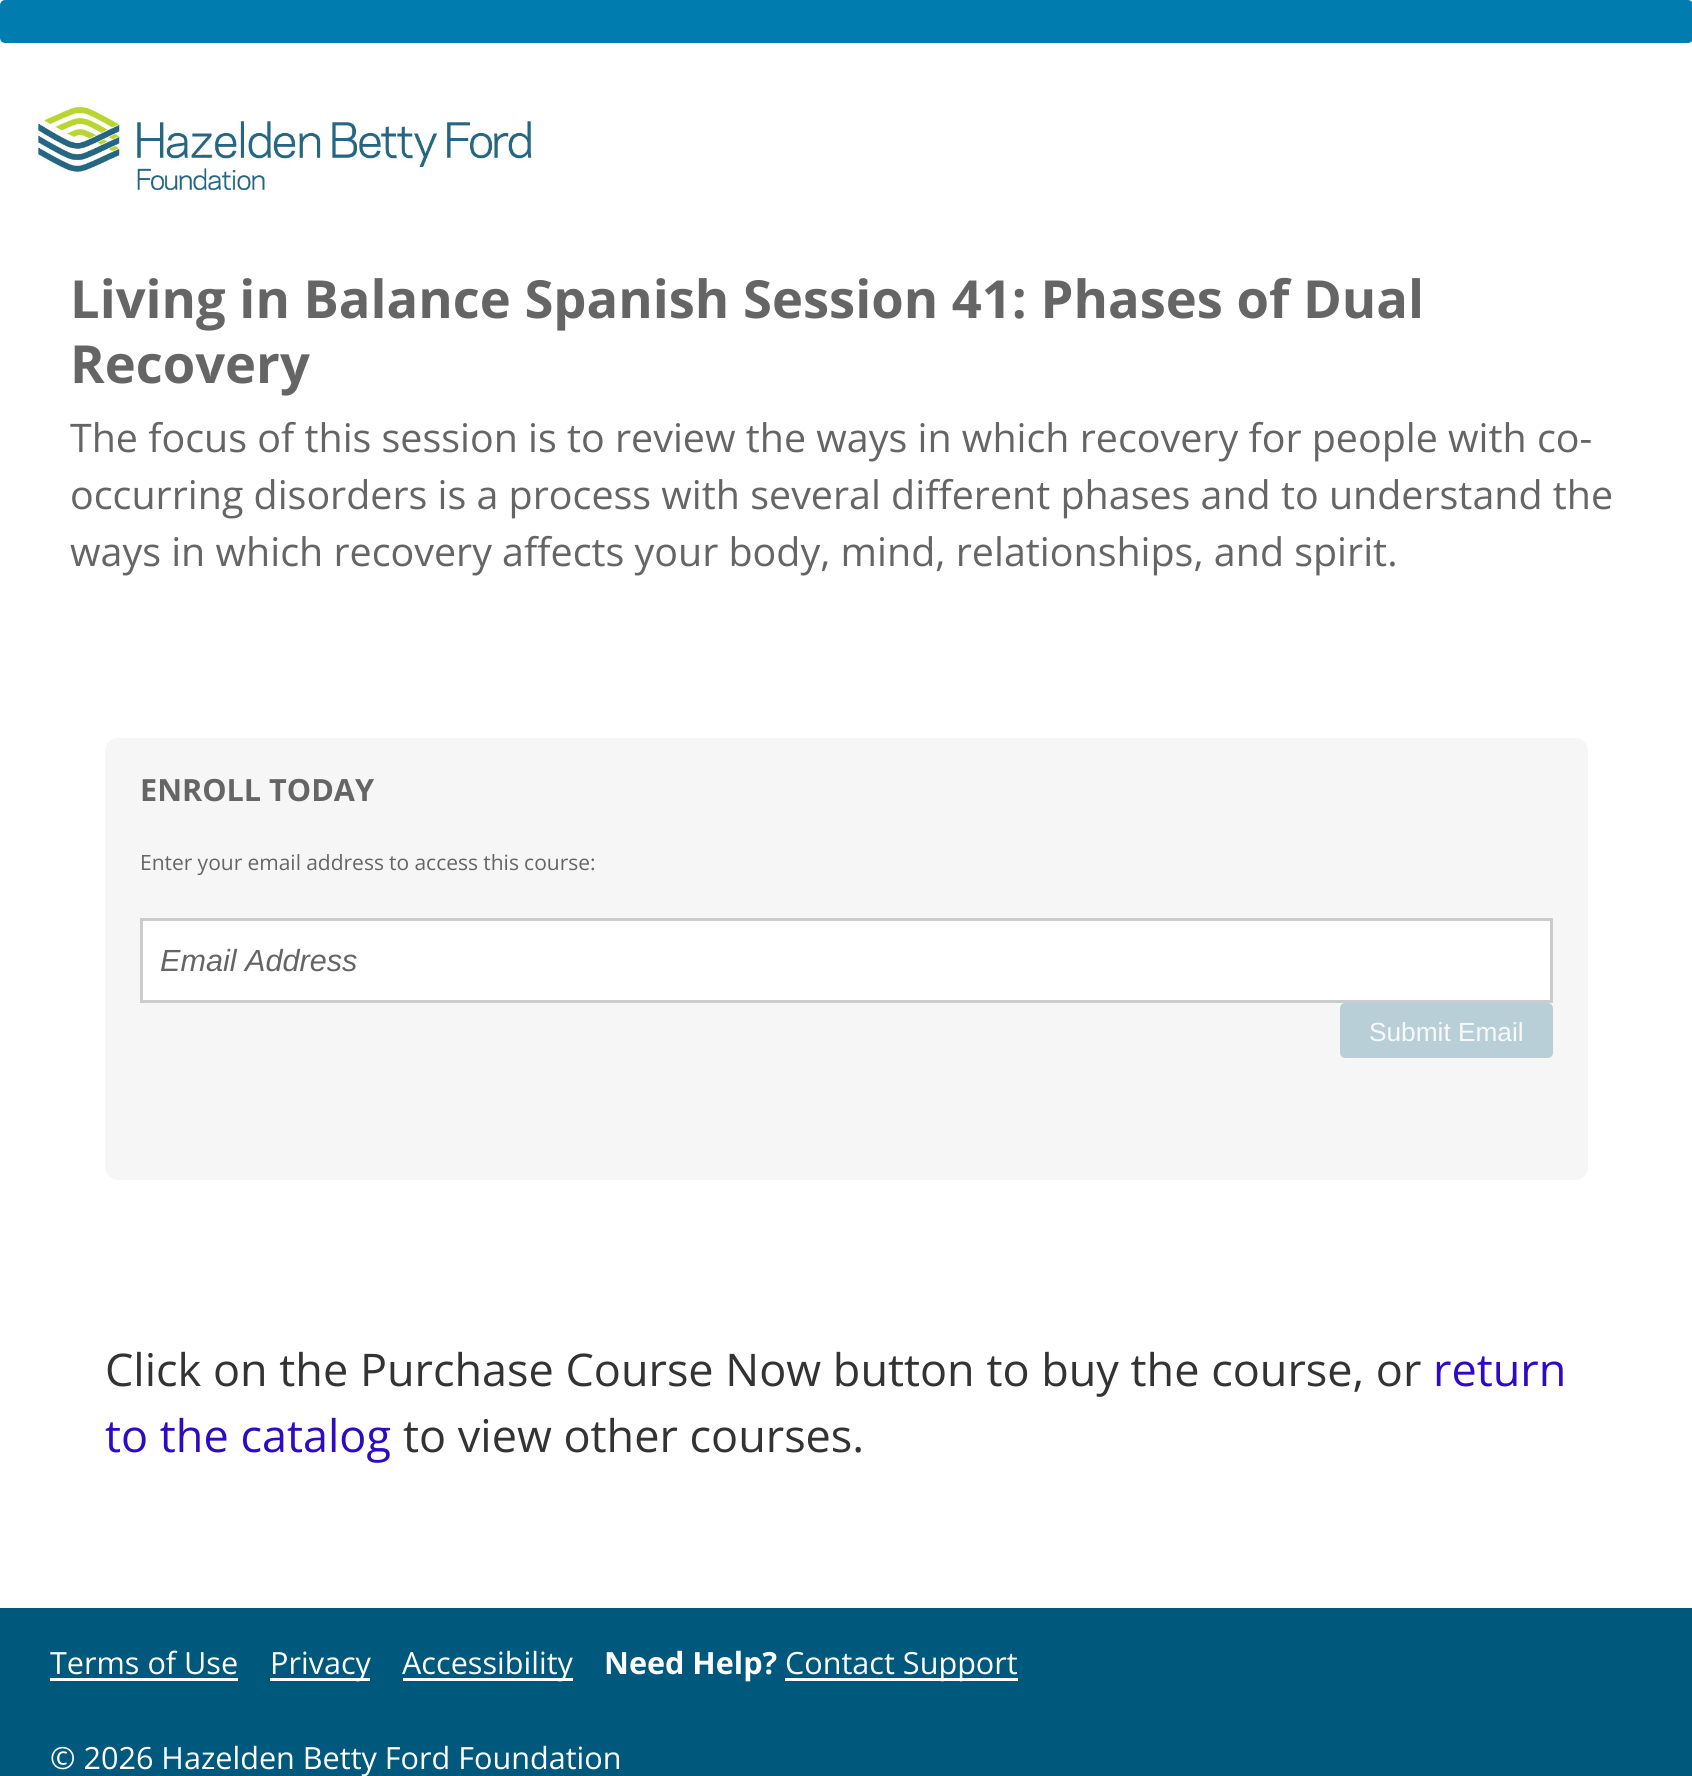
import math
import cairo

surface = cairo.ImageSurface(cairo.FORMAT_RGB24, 1692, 1776)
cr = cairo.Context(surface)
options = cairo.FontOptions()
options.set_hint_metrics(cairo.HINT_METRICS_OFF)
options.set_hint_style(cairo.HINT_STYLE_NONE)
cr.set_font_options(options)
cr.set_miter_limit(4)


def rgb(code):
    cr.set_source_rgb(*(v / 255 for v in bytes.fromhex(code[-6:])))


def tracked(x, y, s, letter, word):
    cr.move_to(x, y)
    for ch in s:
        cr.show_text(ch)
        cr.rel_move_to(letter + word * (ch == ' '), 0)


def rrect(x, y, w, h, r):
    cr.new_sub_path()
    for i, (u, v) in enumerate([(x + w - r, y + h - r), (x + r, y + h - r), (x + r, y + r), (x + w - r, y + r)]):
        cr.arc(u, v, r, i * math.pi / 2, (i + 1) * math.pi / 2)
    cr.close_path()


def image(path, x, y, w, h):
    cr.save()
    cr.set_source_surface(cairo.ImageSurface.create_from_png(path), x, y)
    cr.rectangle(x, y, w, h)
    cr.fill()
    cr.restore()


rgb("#ffffff")
cr.paint()
image("img/1.png", 35, 105, 499, 87)
rgb("#007caf")
rrect(1.5, 1.5, 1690, 40, 3.5)
cr.fill_preserve()
cr.set_line_width(3)
cr.stroke()
rgb("#f6f6f6")
rrect(105, 738, 1483, 442, 13)
cr.fill()
rgb("#ffffff")
cr.rectangle(141.5, 919.5, 1410, 82)
cr.fill_preserve()
rgb("#cccccc")
cr.stroke()
rgb("#b9cfd8")
rrect(1341.5, 1004.5, 210, 52, 3.5)
cr.fill_preserve()
cr.stroke()
for x, y, w, h, color in [
    (0, 1608, 1692, 168, "#00587c"),
    (50, 1678, 188, 3, "#ffffff"),
    (270, 1678, 100, 3, "#ffffff"),
    (403, 1678, 170, 3, "#ffffff"),
    (785, 1678, 233, 3, "#ffffff"),
]:
    rgb(color)
    cr.rectangle(x, y, w, h)
    cr.fill()
cr.select_font_face("Open Sans", cairo.FONT_SLANT_NORMAL, cairo.FONT_WEIGHT_BOLD)
cr.set_font_size(52.5)
rgb("#656565")
cr.move_to(70, 318)
cr.show_text("Living in Balance Spanish Session 41: Phases of Dual")
cr.move_to(70, 383)
cr.show_text("Recovery")
cr.select_font_face("Open Sans")
cr.set_font_size(39.4)
for x, y, s in [
    (70, 452, "The focus of this session is to review the ways in which recovery for people with co-"),
    (70, 509, "occurring disorders is a process with several different phases and to understand the"),
    (70, 566, "ways in which recovery affects your body, mind, relationships, and spirit."),
]:
    cr.move_to(x, y)
    cr.show_text(s)
cr.select_font_face("Open Sans", cairo.FONT_SLANT_NORMAL, cairo.FONT_WEIGHT_BOLD)
cr.set_font_size(30.6)
cr.move_to(140, 801)
cr.show_text("ENROLL TODAY")
cr.select_font_face("Open Sans")
cr.set_font_size(21)
tracked(140, 870, "Enter your email address to access this course:", 0, -0.25)
cr.select_font_face("Liberation Sans", cairo.FONT_SLANT_ITALIC)
cr.set_font_size(30.6)
cr.move_to(160, 971)
cr.show_text("Email Address")
cr.select_font_face("Liberation Sans")
cr.set_font_size(26.25)
rgb("#f8f8f8")
cr.move_to(1369, 1041)
cr.show_text("Submit Email")
cr.select_font_face("Open Sans")
cr.set_font_size(45)
rgb("#333333")
cr.move_to(105, 1386)
cr.show_text("Click on the Purchase Course Now button to buy the course, or")
rgb("#2f0ac2")
cr.move_to(1433, 1386)
cr.show_text("return")
cr.move_to(105, 1452)
cr.show_text("to the catalog")
rgb("#333333")
cr.move_to(403, 1452)
cr.show_text("to view other courses.")
cr.set_font_size(30.6)
rgb("#ffffff")
for x, y, s in [
    (50, 1674, "Terms of Use"),
    (270, 1674, "Privacy"),
    (402, 1674, "Accessibility"),
]:
    cr.move_to(x, y)
    cr.show_text(s)
cr.select_font_face("Open Sans", cairo.FONT_SLANT_NORMAL, cairo.FONT_WEIGHT_BOLD)
cr.move_to(604, 1674)
cr.show_text("Need Help?")
cr.select_font_face("Open Sans")
cr.move_to(785, 1674)
cr.show_text("Contact Support")
cr.move_to(50, 1769)
cr.show_text("© 2026 Hazelden Betty Ford Foundation")
surface.write_to_png("page.png")
